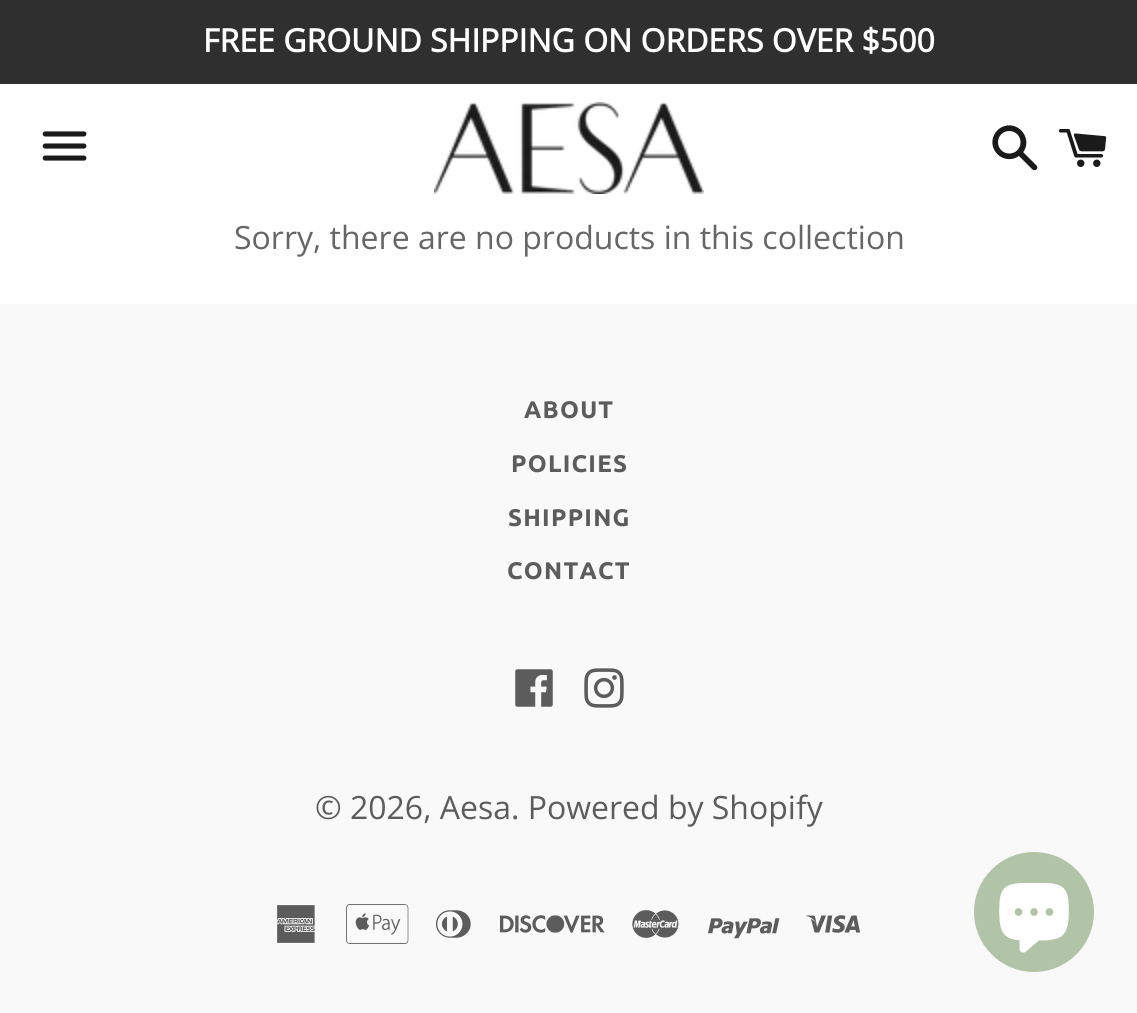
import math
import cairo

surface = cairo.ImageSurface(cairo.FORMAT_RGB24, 1137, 1013)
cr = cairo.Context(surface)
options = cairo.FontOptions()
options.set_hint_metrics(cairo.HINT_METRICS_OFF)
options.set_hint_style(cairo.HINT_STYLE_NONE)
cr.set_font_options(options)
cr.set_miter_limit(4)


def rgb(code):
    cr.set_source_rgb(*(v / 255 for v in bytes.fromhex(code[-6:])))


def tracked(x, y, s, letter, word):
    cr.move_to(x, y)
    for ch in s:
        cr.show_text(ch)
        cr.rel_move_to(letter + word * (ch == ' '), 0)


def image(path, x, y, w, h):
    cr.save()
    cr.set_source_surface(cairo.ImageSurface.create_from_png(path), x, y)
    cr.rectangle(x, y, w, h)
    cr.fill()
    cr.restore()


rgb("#ffffff")
cr.paint()
rgb("#2f2f2f")
cr.rectangle(0, 0, 1137, 84)
cr.fill()
image("img/1.png", 42, 131, 45, 30)
image("img/2.png", 434, 102, 270, 92)
image("img/3.png", 992, 125, 46, 46)
image("img/4.png", 1058, 129, 49, 38)
rgb("#f9f9f9")
cr.rectangle(0, 304, 1137, 709)
cr.fill()
image("img/5.png", 515, 669, 38, 38)
image("img/6.png", 584, 668, 40, 40)
image("img/7.png", 277, 905, 38, 38)
image("img/8.png", 346, 904, 63, 40)
image("img/9.png", 436, 910, 35, 28)
image("img/10.png", 500, 915, 105, 18)
image("img/11.png", 632, 910, 47, 28)
image("img/12.png", 708, 918, 72, 21)
image("img/13.png", 806, 915, 55, 18)
rgb("#b2c4a8")
cr.arc(1034, 912, 60, 0, 2 * math.pi)
cr.fill()
image("img/14.png", 999, 883, 70, 70)
cr.select_font_face("Open Sans", cairo.FONT_SLANT_NORMAL, cairo.FONT_WEIGHT_BOLD)
cr.set_font_size(32)
rgb("#ffffff")
cr.move_to(203, 52)
cr.show_text("FREE GROUND SHIPPING ON ORDERS OVER $500")
cr.select_font_face("Open Sans")
rgb("#666666")
cr.move_to(234, 249)
cr.show_text("Sorry, there are no products in this collection")
cr.select_font_face("Ubuntu", cairo.FONT_SLANT_NORMAL, cairo.FONT_WEIGHT_BOLD)
cr.set_font_size(24)
rgb("#5c5c5c")
for x, y, s in [
    (524, 418, "ABOUT"),
    (511, 472, "POLICIES"),
    (508, 526, "SHIPPING"),
    (507, 579, "CONTACT"),
]:
    tracked(x, y, s, 1.25, 0)
cr.select_font_face("Open Sans")
cr.set_font_size(32)
cr.move_to(315, 819)
cr.show_text("© 2026, Aesa. Powered by Shopify")
surface.write_to_png("page.png")
